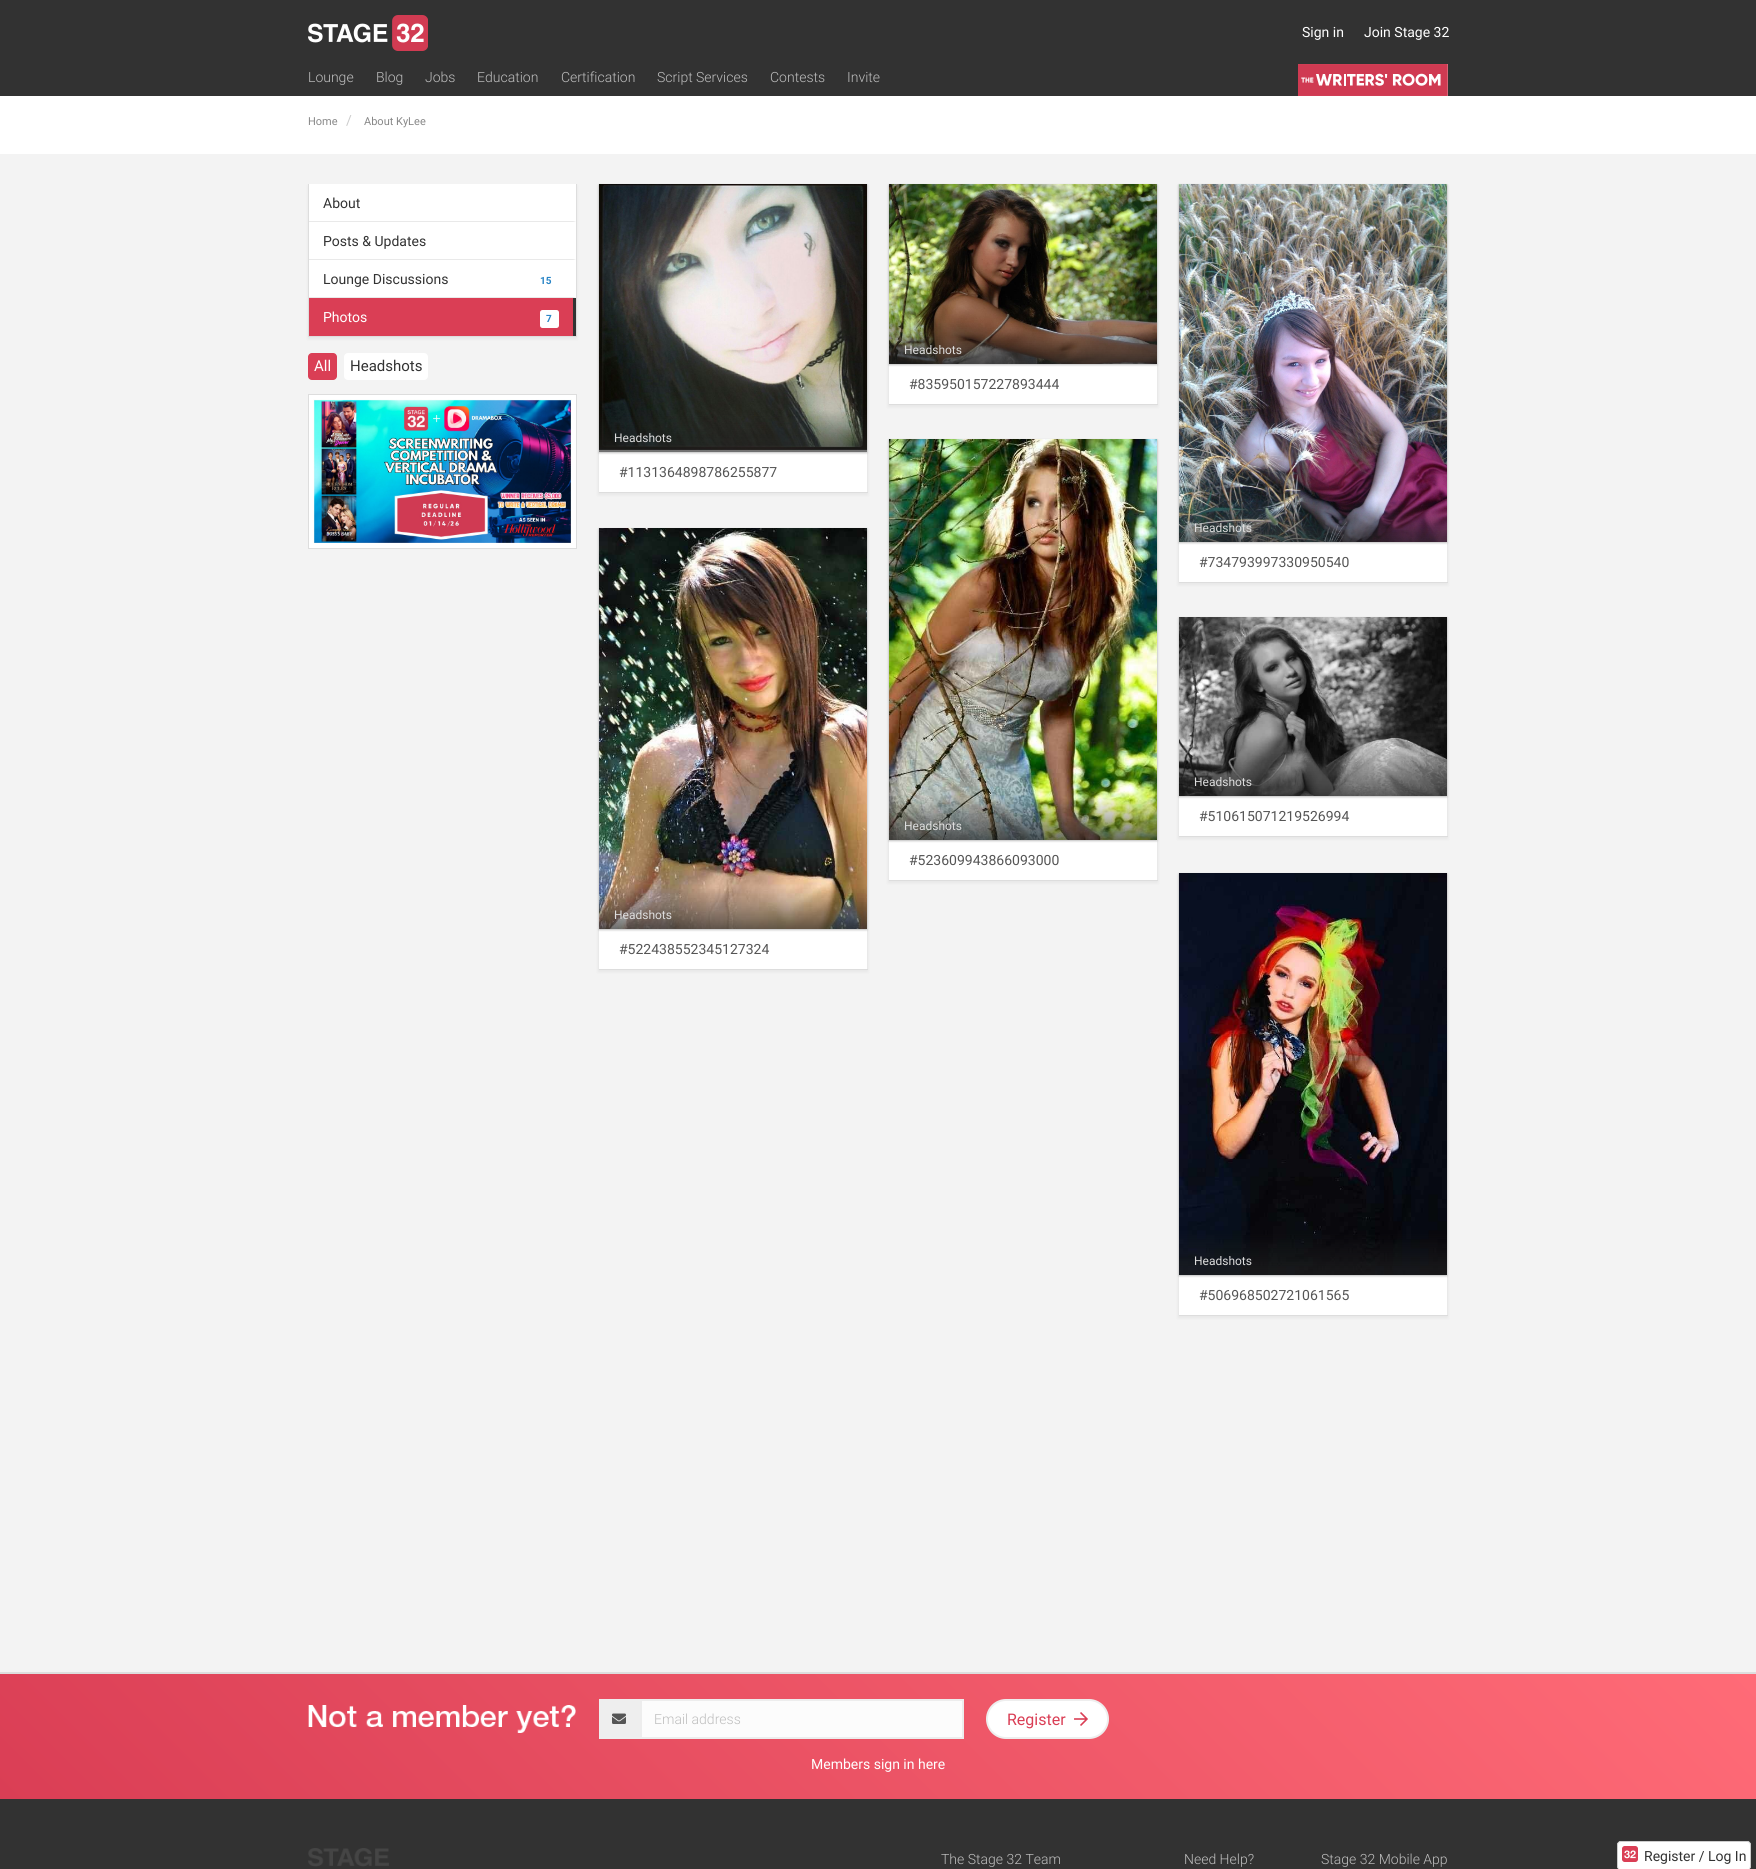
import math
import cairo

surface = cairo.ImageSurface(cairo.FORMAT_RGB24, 1756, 1869)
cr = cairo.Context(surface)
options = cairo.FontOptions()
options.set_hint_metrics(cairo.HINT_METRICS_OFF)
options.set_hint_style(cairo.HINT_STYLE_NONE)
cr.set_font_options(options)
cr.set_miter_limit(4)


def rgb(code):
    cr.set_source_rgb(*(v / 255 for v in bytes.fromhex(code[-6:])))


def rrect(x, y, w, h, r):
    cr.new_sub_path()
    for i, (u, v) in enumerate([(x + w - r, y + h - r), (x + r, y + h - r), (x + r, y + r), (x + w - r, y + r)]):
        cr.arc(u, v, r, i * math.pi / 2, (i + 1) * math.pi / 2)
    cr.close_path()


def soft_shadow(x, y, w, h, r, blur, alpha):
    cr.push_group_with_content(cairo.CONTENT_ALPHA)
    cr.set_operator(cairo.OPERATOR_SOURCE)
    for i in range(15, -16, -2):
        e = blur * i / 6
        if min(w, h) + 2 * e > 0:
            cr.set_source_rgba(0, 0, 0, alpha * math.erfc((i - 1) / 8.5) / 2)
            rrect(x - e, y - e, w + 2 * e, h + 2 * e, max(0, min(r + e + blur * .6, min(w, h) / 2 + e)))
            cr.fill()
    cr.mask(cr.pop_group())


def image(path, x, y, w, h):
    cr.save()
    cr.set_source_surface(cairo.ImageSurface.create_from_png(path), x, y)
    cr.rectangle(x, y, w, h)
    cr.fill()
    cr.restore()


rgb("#f3f3f3")
cr.paint()
rgb("#323232")
cr.rectangle(0, 0, 1756, 96)
cr.fill()
image("img/1.png", 308, 15, 120, 36)
image("img/2.png", 1298, 64, 150, 32)
rgb("#ffffff")
cr.rectangle(0, 96, 1756, 58)
cr.fill()
rgb("#000000")
soft_shadow(308, 186, 269, 153, 0, 1.5, 0.05)
for x, y, w, h, color in [
    (309, 184, 267, 114, "#ffffff"),
    (576, 184, 1, 153, "#dddddd"),
    (308, 336, 269, 1, "#dddddd"),
    (308, 184, 1, 153, "#dddddd"),
]:
    rgb(color)
    cr.rectangle(x, y, w, h)
    cr.fill()
rgb("#e9e9e9")
cr.new_path()
cr.move_to(576, 222)
cr.line_to(309, 222)
cr.line_to(309, 221)
cr.line_to(573, 221)
cr.close_path()
cr.fill()
cr.new_path()
cr.move_to(576, 260)
cr.line_to(309, 260)
cr.line_to(309, 259)
cr.line_to(573, 259)
cr.close_path()
cr.fill()
cr.new_path()
cr.move_to(576, 298)
cr.line_to(309, 298)
cr.line_to(309, 297)
cr.line_to(573, 297)
cr.close_path()
cr.fill()
rgb("#da3e55")
cr.rectangle(309, 298, 264, 38)
cr.fill()
rgb("#323232")
cr.rectangle(573, 298, 3, 38)
cr.fill()
rgb("#ffffff")
rrect(540, 310, 19, 18, 2.5)
cr.fill()
rgb("#da3e55")
rrect(308, 353, 29, 27, 4)
cr.fill()
rgb("#ffffff")
rrect(344, 353, 84, 27, 4)
cr.fill()
cr.rectangle(308.5, 394.5, 268, 154)
cr.fill_preserve()
rgb("#dddddd")
cr.set_line_width(1)
cr.stroke()
image("img/3.png", 313, 399, 259, 144)
rgb("#000000")
soft_shadow(888, 186, 270, 221, 0, 1.5, 0.05)
for x, y, w, h, color in [
    (889, 364, 268, 40, "#ffffff"),
    (1157, 184, 1, 221, "#e9e9e9"),
    (888, 404, 270, 1, "#dddddd"),
    (888, 184, 1, 221, "#e9e9e9"),
]:
    rgb(color)
    cr.rectangle(x, y, w, h)
    cr.fill()
rgb("#000000")
soft_shadow(889, 185, 268, 180, 0, 1, 0.25)
image("img/4.png", 889, 184, 268, 180)
soft_shadow(598, 186, 270, 309, 0, 1.5, 0.05)
for x, y, w, h, color in [
    (599, 452, 268, 40, "#ffffff"),
    (867, 184, 1, 309, "#e9e9e9"),
    (598, 492, 270, 1, "#dddddd"),
    (598, 184, 1, 309, "#e9e9e9"),
]:
    rgb(color)
    cr.rectangle(x, y, w, h)
    cr.fill()
rgb("#000000")
soft_shadow(599, 185, 268, 268, 0, 1, 0.25)
image("img/5.png", 599, 184, 268, 268)
soft_shadow(1178, 186, 270, 399, 0, 1.5, 0.05)
for x, y, w, h, color in [
    (1179, 542, 268, 40, "#ffffff"),
    (1447, 184, 1, 399, "#e9e9e9"),
    (1178, 582, 270, 1, "#dddddd"),
    (1178, 184, 1, 399, "#e9e9e9"),
]:
    rgb(color)
    cr.rectangle(x, y, w, h)
    cr.fill()
rgb("#000000")
soft_shadow(1179, 185, 268, 358, 0, 1, 0.25)
image("img/6.png", 1179, 184, 268, 358)
soft_shadow(1178, 619, 270, 220, 0, 1.5, 0.05)
for x, y, w, h, color in [
    (1179, 796, 268, 40, "#ffffff"),
    (1447, 617, 1, 220, "#e9e9e9"),
    (1178, 836, 270, 1, "#dddddd"),
    (1178, 617, 1, 220, "#e9e9e9"),
]:
    rgb(color)
    cr.rectangle(x, y, w, h)
    cr.fill()
rgb("#000000")
soft_shadow(1179, 618, 268, 179, 0, 1, 0.25)
image("img/7.png", 1179, 617, 268, 179)
soft_shadow(888, 441, 270, 442, 0, 1.5, 0.05)
for x, y, w, h, color in [
    (889, 840, 268, 40, "#ffffff"),
    (1157, 439, 1, 442, "#e9e9e9"),
    (888, 880, 270, 1, "#dddddd"),
    (888, 439, 1, 442, "#e9e9e9"),
]:
    rgb(color)
    cr.rectangle(x, y, w, h)
    cr.fill()
rgb("#000000")
soft_shadow(889, 440, 268, 401, 0, 1, 0.25)
image("img/8.png", 889, 439, 268, 401)
soft_shadow(598, 530, 270, 442, 0, 1.5, 0.05)
for x, y, w, h, color in [
    (599, 929, 268, 40, "#ffffff"),
    (867, 528, 1, 442, "#e9e9e9"),
    (598, 969, 270, 1, "#dddddd"),
    (598, 528, 1, 442, "#e9e9e9"),
]:
    rgb(color)
    cr.rectangle(x, y, w, h)
    cr.fill()
rgb("#000000")
soft_shadow(599, 529, 268, 401, 0, 1, 0.25)
image("img/9.png", 599, 528, 268, 401)
soft_shadow(1178, 875, 270, 443, 0, 1.5, 0.05)
for x, y, w, h, color in [
    (1179, 1275, 268, 40, "#ffffff"),
    (1447, 873, 1, 443, "#e9e9e9"),
    (1178, 1315, 270, 1, "#dddddd"),
    (1178, 873, 1, 443, "#e9e9e9"),
]:
    rgb(color)
    cr.rectangle(x, y, w, h)
    cr.fill()
rgb("#000000")
soft_shadow(1179, 874, 268, 402, 0, 1, 0.25)
image("img/10.png", 1179, 873, 268, 402)
gradient = cairo.LinearGradient(408, 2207, 1348, 1266)
gradient.add_color_stop_rgba(0, 0.855, 0.243, 0.333, 1)
gradient.add_color_stop_rgba(1, 1, 0.42, 0.467, 1)
cr.set_source(gradient)
cr.rectangle(0, 1674, 1756, 125)
cr.fill()
rgb("#dddddd")
cr.rectangle(0, 1672, 1756, 2)
cr.fill()
image("img/11.png", 308, 1705, 268, 28)
rgb("#eeeeee")
cr.rectangle(599, 1699, 41, 40)
cr.fill()
image("img/12.png", 612, 1713, 14, 11)
rgb("#fcfcfc")
cr.rectangle(641, 1700, 322, 38)
cr.fill_preserve()
rgb("#ededed")
cr.set_line_width(2)
cr.stroke()
rgb("#ffffff")
rrect(987, 1700, 121, 38, 19)
cr.fill_preserve()
rgb("#eeeeee")
cr.stroke()
image("img/13.png", 1074, 1712, 14, 14)
rgb("#323232")
cr.rectangle(0, 1799, 1756, 70)
cr.fill()
image("img/14.png", 308, 1848, 81, 19)
rgb("#ffffff")
rrect(1617, 1841, 134, 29, 4)
cr.fill()
rgb("#cccccc")
cr.set_fill_rule(cairo.FILL_RULE_EVEN_ODD)
cr.new_path()
cr.move_to(1621, 1841)
cr.line_to(1747, 1841)
cr.curve_to(1749, 1841, 1751, 1843, 1751, 1845)
cr.line_to(1751, 1866)
cr.curve_to(1751, 1868, 1749, 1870, 1747, 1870)
cr.line_to(1621, 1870)
cr.curve_to(1619, 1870, 1617, 1868, 1617, 1866)
cr.line_to(1617, 1845)
cr.curve_to(1617, 1843, 1619, 1841, 1621, 1841)
cr.close_path()
cr.move_to(1621, 1842)
cr.line_to(1747, 1842)
cr.curve_to(1749, 1842, 1750, 1843, 1750, 1845)
cr.line_to(1750, 1866)
cr.curve_to(1750, 1868, 1749, 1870, 1747, 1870)
cr.line_to(1621, 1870)
cr.curve_to(1619, 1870, 1618, 1868, 1618, 1866)
cr.line_to(1618, 1845)
cr.curve_to(1618, 1843, 1619, 1842, 1621, 1842)
cr.close_path()
cr.fill()
image("img/15.png", 1622, 1846, 16, 16)
cr.select_font_face("Roboto")
cr.set_font_size(14)
rgb("#ffffff")
cr.move_to(1302, 37)
cr.show_text("Sign in")
cr.move_to(1364, 37)
cr.show_text("Join Stage 32")
cr.select_font_face("Roboto Light")
rgb("#bebebe")
for x, y, s in [
    (308, 82, "Lounge"),
    (376, 82, "Blog"),
    (425, 82, "Jobs"),
    (477, 82, "Education"),
    (561, 82, "Certification"),
    (657, 82, "Script Services"),
    (770, 82, "Contests"),
    (847, 82, "Invite"),
]:
    cr.move_to(x, y)
    cr.show_text(s)
cr.select_font_face("Roboto")
cr.set_font_size(11)
rgb("#888888")
cr.move_to(308, 125)
cr.show_text("Home")
cr.set_font_size(14)
rgb("#cccccc")
cr.move_to(346, 125)
cr.show_text("/")
cr.set_font_size(11)
rgb("#888888")
cr.move_to(364, 125)
cr.show_text("About KyLee")
cr.set_font_size(14)
rgb("#323232")
for x, y, s in [
    (323, 208, "About"),
    (323, 246, "Posts & Updates"),
    (323, 284, "Lounge Discussions"),
]:
    cr.move_to(x, y)
    cr.show_text(s)
cr.select_font_face("Roboto", cairo.FONT_SLANT_NORMAL, cairo.FONT_WEIGHT_BOLD)
cr.set_font_size(10)
rgb("#2884c6")
cr.move_to(540, 284)
cr.show_text("15")
cr.select_font_face("Roboto")
cr.set_font_size(14)
rgb("#ffffff")
cr.move_to(323, 322)
cr.show_text("Photos")
cr.select_font_face("Roboto", cairo.FONT_SLANT_NORMAL, cairo.FONT_WEIGHT_BOLD)
cr.set_font_size(10)
rgb("#2884c6")
cr.move_to(546, 322)
cr.show_text("7")
cr.select_font_face("Roboto")
cr.set_font_size(15)
rgb("#ffffff")
cr.move_to(314, 371)
cr.show_text("All")
rgb("#323232")
cr.move_to(350, 371)
cr.show_text("Headshots")
cr.set_font_size(12)
rgb("#dddddd")
cr.move_to(904, 354)
cr.show_text("Headshots")
cr.set_font_size(14)
rgb("#555555")
cr.move_to(909, 389)
cr.show_text("#835950157227893444")
cr.set_font_size(12)
rgb("#dddddd")
cr.move_to(614, 442)
cr.show_text("Headshots")
cr.set_font_size(14)
rgb("#555555")
cr.move_to(619, 477)
cr.show_text("#1131364898786255877")
cr.set_font_size(12)
rgb("#dddddd")
cr.move_to(1194, 532)
cr.show_text("Headshots")
cr.set_font_size(14)
rgb("#555555")
cr.move_to(1199, 567)
cr.show_text("#734793997330950540")
cr.set_font_size(12)
rgb("#dddddd")
cr.move_to(1194, 786)
cr.show_text("Headshots")
cr.set_font_size(14)
rgb("#555555")
cr.move_to(1199, 821)
cr.show_text("#510615071219526994")
cr.set_font_size(12)
rgb("#dddddd")
cr.move_to(904, 830)
cr.show_text("Headshots")
cr.set_font_size(14)
rgb("#555555")
cr.move_to(909, 865)
cr.show_text("#523609943866093000")
cr.set_font_size(12)
rgb("#dddddd")
cr.move_to(614, 919)
cr.show_text("Headshots")
cr.set_font_size(14)
rgb("#555555")
cr.move_to(619, 954)
cr.show_text("#522438552345127324")
cr.set_font_size(12)
rgb("#dddddd")
cr.move_to(1194, 1265)
cr.show_text("Headshots")
cr.set_font_size(14)
rgb("#555555")
cr.move_to(1199, 1300)
cr.show_text("#506968502721061565")
cr.select_font_face("Roboto Light")
rgb("#bebebe")
cr.move_to(654, 1724)
cr.show_text("Email address")
cr.select_font_face("Roboto")
cr.set_font_size(16)
rgb("#da3e55")
cr.move_to(1007, 1725)
cr.show_text("Register")
cr.set_font_size(14)
rgb("#ffffff")
cr.move_to(811, 1769)
cr.show_text("Members sign in here")
cr.select_font_face("Roboto Light")
rgb("#bebebe")
for x, y, s in [
    (941, 1864, "The Stage 32 Team"),
    (1184, 1864, "Need Help?"),
    (1321, 1864, "Stage 32 Mobile App"),
]:
    cr.move_to(x, y)
    cr.show_text(s)
cr.select_font_face("Roboto")
rgb("#323232")
cr.move_to(1644, 1861)
cr.show_text("Register / Log In")
surface.write_to_png("page.png")
